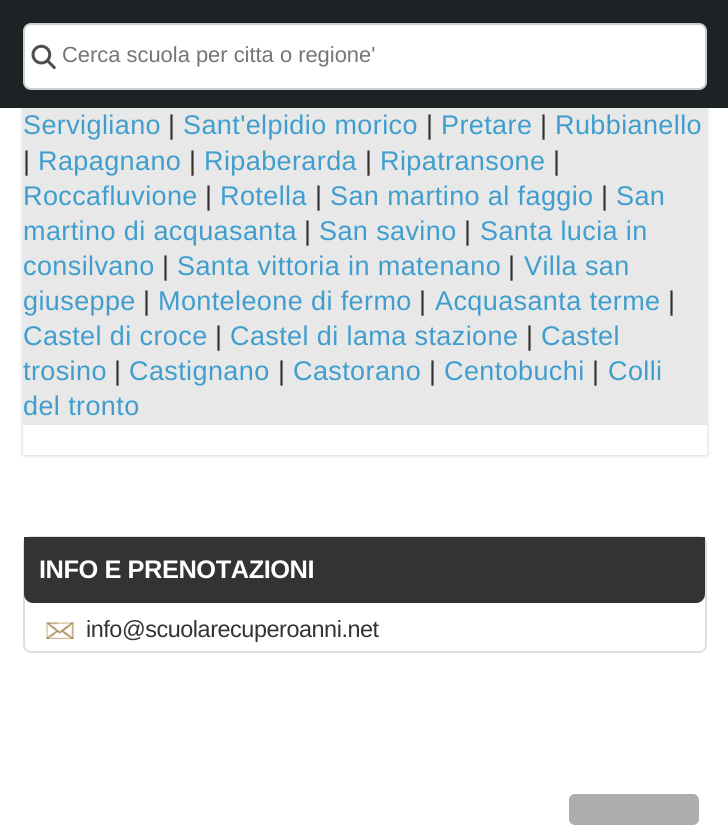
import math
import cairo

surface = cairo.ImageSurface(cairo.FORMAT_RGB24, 728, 825)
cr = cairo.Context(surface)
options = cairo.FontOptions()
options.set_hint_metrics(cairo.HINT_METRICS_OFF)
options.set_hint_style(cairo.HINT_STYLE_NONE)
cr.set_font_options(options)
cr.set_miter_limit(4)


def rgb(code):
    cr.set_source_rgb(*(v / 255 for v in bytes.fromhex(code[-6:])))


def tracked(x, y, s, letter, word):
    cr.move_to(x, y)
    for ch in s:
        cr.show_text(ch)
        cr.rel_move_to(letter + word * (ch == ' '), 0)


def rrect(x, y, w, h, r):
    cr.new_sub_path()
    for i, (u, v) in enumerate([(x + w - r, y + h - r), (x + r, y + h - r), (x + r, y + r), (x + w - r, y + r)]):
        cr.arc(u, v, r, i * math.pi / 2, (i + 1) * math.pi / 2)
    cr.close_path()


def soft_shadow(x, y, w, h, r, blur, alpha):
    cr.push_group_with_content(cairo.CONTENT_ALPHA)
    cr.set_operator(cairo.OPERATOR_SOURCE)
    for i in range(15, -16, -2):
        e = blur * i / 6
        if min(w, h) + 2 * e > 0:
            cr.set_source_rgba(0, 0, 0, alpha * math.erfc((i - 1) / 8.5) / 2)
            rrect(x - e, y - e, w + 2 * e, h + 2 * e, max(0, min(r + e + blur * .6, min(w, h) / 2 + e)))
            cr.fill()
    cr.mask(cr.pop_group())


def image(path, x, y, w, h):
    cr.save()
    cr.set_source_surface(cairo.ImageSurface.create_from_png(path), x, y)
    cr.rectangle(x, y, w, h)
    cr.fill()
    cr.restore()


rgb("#ffffff")
cr.paint()
rgb("#cacaca")
soft_shadow(23, -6, 684, 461, 0, 2, 1)
rgb("#1d2224")
cr.rectangle(0, 0, 728, 108)
cr.fill()
rgb("#ffffff")
rrect(24, 24, 682, 65, 7)
cr.fill_preserve()
rgb("#cecece")
cr.stroke()
image("img/1.png", 31, 44, 25, 25)
rgb("#ffffff")
cr.rectangle(23, 425, 684, 30)
cr.fill()
rgb("#e8e8e8")
cr.rectangle(23, 108, 684, 317)
cr.fill()
rrect(24, 537, 682, 115, 7)
rgb("#e1dddd")
cr.stroke()
rgb("#333333")
cr.new_path()
cr.move_to(24, 537)
cr.line_to(705, 537)
cr.line_to(705, 594)
cr.curve_to(705, 599, 701, 603, 696, 603)
cr.line_to(33, 603)
cr.curve_to(28, 603, 24, 599, 24, 594)
cr.close_path()
cr.fill()
image("img/2.png", 46, 622, 28, 17)
rgb("#adadad")
rrect(569, 794, 130, 31, 6)
cr.fill()
cr.select_font_face("Liberation Sans")
cr.set_font_size(21.9)
rgb("#757575")
cr.move_to(62, 62)
cr.show_text("Cerca scuola per citta o regione'")
cr.set_font_size(27)
rgb("#3f9ece")
tracked(23, 134, "Servigliano", 0.4, 0)
rgb("#333333")
tracked(168, 134, "|", 0.4, 0)
rgb("#3f9ece")
tracked(183, 134, "Sant'elpidio morico", 0.4, 0)
rgb("#333333")
tracked(426, 134, "|", 0.4, 0)
rgb("#3f9ece")
tracked(441, 134, "Pretare", 0.4, 0)
rgb("#333333")
tracked(540, 134, "|", 0.4, 0)
rgb("#3f9ece")
tracked(555, 134, "Rubbianello", 0.4, 0)
rgb("#333333")
tracked(23, 170, "|", 0.4, 0)
rgb("#3f9ece")
tracked(38, 170, "Rapagnano", 0.4, 0)
rgb("#333333")
tracked(189, 170, "|", 0.4, 0)
rgb("#3f9ece")
tracked(204, 170, "Ripaberarda", 0.4, 0)
rgb("#333333")
tracked(365, 170, "|", 0.4, 0)
rgb("#3f9ece")
tracked(380, 170, "Ripatransone", 0.4, 0)
rgb("#333333")
tracked(553, 170, "|", 0.4, 0)
rgb("#3f9ece")
tracked(23, 205, "Roccafluvione", 0.4, 0)
rgb("#333333")
tracked(205, 205, "|", 0.4, 0)
rgb("#3f9ece")
tracked(220, 205, "Rotella", 0.4, 0)
rgb("#333333")
tracked(315, 205, "|", 0.4, 0)
rgb("#3f9ece")
tracked(330, 205, "San martino al faggio", 0.4, 0)
rgb("#333333")
tracked(601, 205, "|", 0.4, 0)
rgb("#3f9ece")
tracked(616, 205, "San", 0.4, 0)
tracked(23, 240, "martino di acquasanta", 0.4, 0)
rgb("#333333")
tracked(304, 240, "|", 0.4, 0)
rgb("#3f9ece")
tracked(319, 240, "San savino", 0.4, 0)
rgb("#333333")
tracked(464, 240, "|", 0.4, 0)
rgb("#3f9ece")
tracked(480, 240, "Santa lucia in", 0.4, 0)
tracked(23, 275, "consilvano", 0.4, 0)
rgb("#333333")
tracked(162, 275, "|", 0.4, 0)
rgb("#3f9ece")
tracked(177, 275, "Santa vittoria in matenano", 0.4, 0)
rgb("#333333")
tracked(508, 275, "|", 0.4, 0)
rgb("#3f9ece")
tracked(524, 275, "Villa san", 0.4, 0)
tracked(23, 310, "giuseppe", 0.4, 0)
rgb("#333333")
tracked(143, 310, "|", 0.4, 0)
rgb("#3f9ece")
tracked(158, 310, "Monteleone di fermo", 0.4, 0)
rgb("#333333")
tracked(419, 310, "|", 0.4, 0)
rgb("#3f9ece")
tracked(435, 310, "Acquasanta terme", 0.4, 0)
rgb("#333333")
tracked(668, 310, "|", 0.4, 0)
rgb("#3f9ece")
tracked(23, 345, "Castel di croce", 0.4, 0)
rgb("#333333")
tracked(215, 345, "|", 0.4, 0)
rgb("#3f9ece")
tracked(230, 345, "Castel di lama stazione", 0.4, 0)
rgb("#333333")
tracked(526, 345, "|", 0.4, 0)
rgb("#3f9ece")
tracked(541, 345, "Castel", 0.4, 0)
tracked(23, 380, "trosino", 0.4, 0)
rgb("#333333")
tracked(114, 380, "|", 0.4, 0)
rgb("#3f9ece")
tracked(129, 380, "Castignano", 0.4, 0)
rgb("#333333")
tracked(278, 380, "|", 0.4, 0)
rgb("#3f9ece")
tracked(293, 380, "Castorano", 0.4, 0)
rgb("#333333")
tracked(429, 380, "|", 0.4, 0)
rgb("#3f9ece")
tracked(444, 380, "Centobuchi", 0.4, 0)
rgb("#333333")
tracked(592, 380, "|", 0.4, 0)
rgb("#3f9ece")
tracked(608, 380, "Colli", 0.4, 0)
tracked(23, 415, "del tronto", 0.4, 0)
cr.select_font_face("Liberation Sans", cairo.FONT_SLANT_NORMAL, cairo.FONT_WEIGHT_BOLD)
cr.set_font_size(25.4)
rgb("#ffffff")
tracked(39, 578, "INFO E PRENOTAZIONI", -0.45, 0)
cr.select_font_face("Liberation Sans")
cr.set_font_size(23.4)
rgb("#333333")
tracked(86, 637, "info@scuolarecuperoanni.net", -0.45, 0)
surface.write_to_png("page.png")
